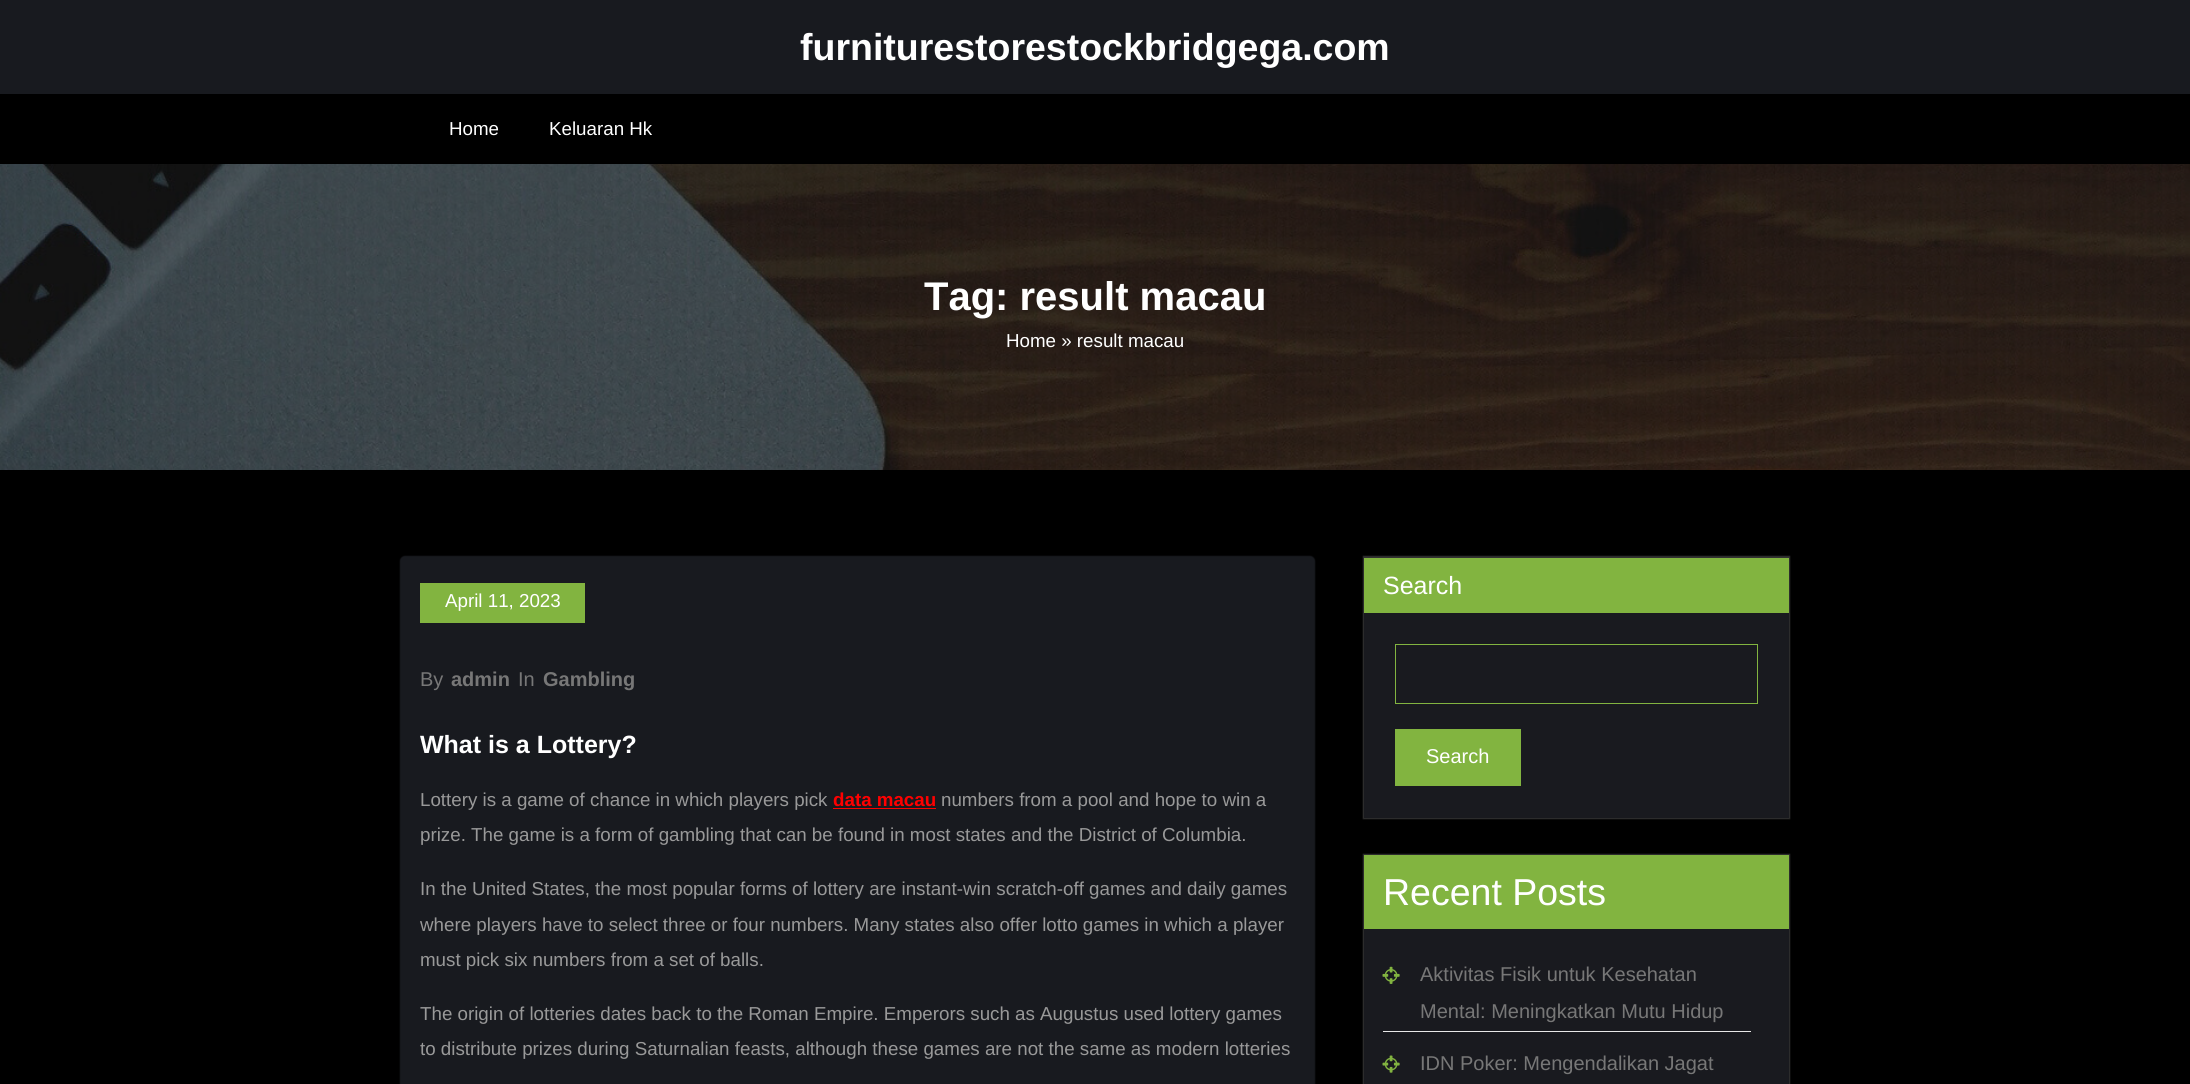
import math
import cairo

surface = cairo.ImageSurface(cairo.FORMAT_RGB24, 2190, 1084)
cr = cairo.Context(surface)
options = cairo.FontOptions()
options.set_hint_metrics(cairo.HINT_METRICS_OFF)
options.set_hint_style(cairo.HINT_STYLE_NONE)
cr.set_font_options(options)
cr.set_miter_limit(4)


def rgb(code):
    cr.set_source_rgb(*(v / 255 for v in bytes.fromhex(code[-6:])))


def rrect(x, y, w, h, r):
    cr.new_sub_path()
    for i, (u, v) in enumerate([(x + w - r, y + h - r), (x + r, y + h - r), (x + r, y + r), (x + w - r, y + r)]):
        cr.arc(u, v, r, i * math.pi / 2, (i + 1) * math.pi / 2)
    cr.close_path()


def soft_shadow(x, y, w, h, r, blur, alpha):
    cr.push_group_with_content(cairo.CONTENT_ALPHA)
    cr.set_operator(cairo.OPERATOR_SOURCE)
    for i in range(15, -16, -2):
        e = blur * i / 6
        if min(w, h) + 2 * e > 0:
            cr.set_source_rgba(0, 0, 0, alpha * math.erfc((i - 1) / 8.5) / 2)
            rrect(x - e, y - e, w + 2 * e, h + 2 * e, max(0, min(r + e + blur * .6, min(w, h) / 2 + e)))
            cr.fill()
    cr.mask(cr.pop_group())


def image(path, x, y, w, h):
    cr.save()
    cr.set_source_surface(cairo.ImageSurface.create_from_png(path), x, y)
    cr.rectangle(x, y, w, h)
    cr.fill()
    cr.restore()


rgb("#000000")
cr.paint()
rgb("#181a1f")
cr.rectangle(0, 0, 2190, 94)
cr.fill()
image("img/1.png", 0, 164, 2190, 306)
rgb("#181a1f")
soft_shadow(400, 556, 915, 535, 5, 0.5, 1)
rgb("#82b440")
cr.rectangle(420, 583, 165, 40)
cr.fill()
rgb("#ff0000")
cr.rectangle(833, 808, 103, 1)
cr.fill()
rgb("#323232")
soft_shadow(1363, 556, 427, 263, 0, 0.5, 1)
rgb("#191a1f")
cr.rectangle(1364, 613, 425, 205)
cr.fill()
rgb("#82b440")
cr.rectangle(1364, 558, 425, 55)
cr.fill()
cr.rectangle(1395.5, 644.5, 362, 59)
cr.set_line_width(1)
cr.stroke()
cr.rectangle(1395, 729, 126, 57)
cr.fill()
rgb("#323232")
soft_shadow(1363, 854, 427, 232, 0, 0.5, 1)
for x, y, w, h, color in [
    (1364, 929, 425, 155, "#191a1f"),
    (1364, 855, 425, 74, "#82b440"),
    (1383, 1031, 368, 1, "#e8e8e8"),
]:
    rgb(color)
    cr.rectangle(x, y, w, h)
    cr.fill()
image("img/2.png", 1382, 966, 18, 18)
image("img/3.png", 1382, 1055, 18, 18)
cr.select_font_face("Liberation Sans", cairo.FONT_SLANT_NORMAL, cairo.FONT_WEIGHT_BOLD)
cr.set_font_size(37.5)
rgb("#ffffff")
cr.move_to(800, 60)
cr.show_text("furniturestorestockbridgega.com")
cr.select_font_face("Liberation Sans")
cr.set_font_size(18.75)
cr.move_to(449, 135)
cr.show_text("Home")
cr.move_to(549, 135)
cr.show_text("Keluaran Hk")
cr.select_font_face("Liberation Sans", cairo.FONT_SLANT_NORMAL, cairo.FONT_WEIGHT_BOLD)
cr.set_font_size(40)
cr.move_to(924, 310)
cr.show_text("Tag: result macau")
cr.select_font_face("Liberation Sans")
cr.set_font_size(18.75)
cr.move_to(1006, 347)
cr.show_text("Home » result macau")
cr.move_to(445, 607)
cr.show_text("April 11, 2023")
cr.set_font_size(20)
rgb("#777777")
cr.move_to(420, 686)
cr.show_text("By")
cr.select_font_face("Liberation Sans", cairo.FONT_SLANT_NORMAL, cairo.FONT_WEIGHT_BOLD)
cr.move_to(451, 686)
cr.show_text("admin")
cr.select_font_face("Liberation Sans")
cr.move_to(518, 686)
cr.show_text("In")
cr.select_font_face("Liberation Sans", cairo.FONT_SLANT_NORMAL, cairo.FONT_WEIGHT_BOLD)
cr.move_to(543, 686)
cr.show_text("Gambling")
cr.set_font_size(25)
rgb("#ffffff")
cr.move_to(420, 753)
cr.show_text("What is a Lottery?")
cr.select_font_face("Liberation Sans")
cr.set_font_size(18.75)
rgb("#999999")
cr.move_to(420, 806)
cr.show_text("Lottery is a game of chance in which players pick")
cr.select_font_face("Liberation Sans", cairo.FONT_SLANT_NORMAL, cairo.FONT_WEIGHT_BOLD)
rgb("#ff0000")
cr.move_to(833, 806)
cr.show_text("data macau")
cr.select_font_face("Liberation Sans")
rgb("#999999")
for x, y, s in [
    (941, 806, "numbers from a pool and hope to win a"),
    (420, 841, "prize. The game is a form of gambling that can be found in most states and the District of Columbia."),
    (420, 895, "In the United States, the most popular forms of lottery are instant-win scratch-off games and daily games"),
    (420, 931, "where players have to select three or four numbers. Many states also offer lotto games in which a player"),
    (420, 966, "must pick six numbers from a set of balls."),
    (420, 1020, "The origin of lotteries dates back to the Roman Empire. Emperors such as Augustus used lottery games"),
    (420, 1055, "to distribute prizes during Saturnalian feasts, although these games are not the same as modern lotteries"),
]:
    cr.move_to(x, y)
    cr.show_text(s)
cr.set_font_size(25)
rgb("#ffffff")
cr.move_to(1383, 594)
cr.show_text("Search")
cr.set_font_size(20)
cr.move_to(1426, 763)
cr.show_text("Search")
cr.set_font_size(37.5)
cr.move_to(1383, 905)
cr.show_text("Recent Posts")
cr.set_font_size(20)
rgb("#777777")
for x, y, s in [
    (1420, 981, "Aktivitas Fisik untuk Kesehatan"),
    (1420, 1018, "Mental: Meningkatkan Mutu Hidup"),
    (1420, 1070, "IDN Poker: Mengendalikan Jagat"),
]:
    cr.move_to(x, y)
    cr.show_text(s)
surface.write_to_png("page.png")
